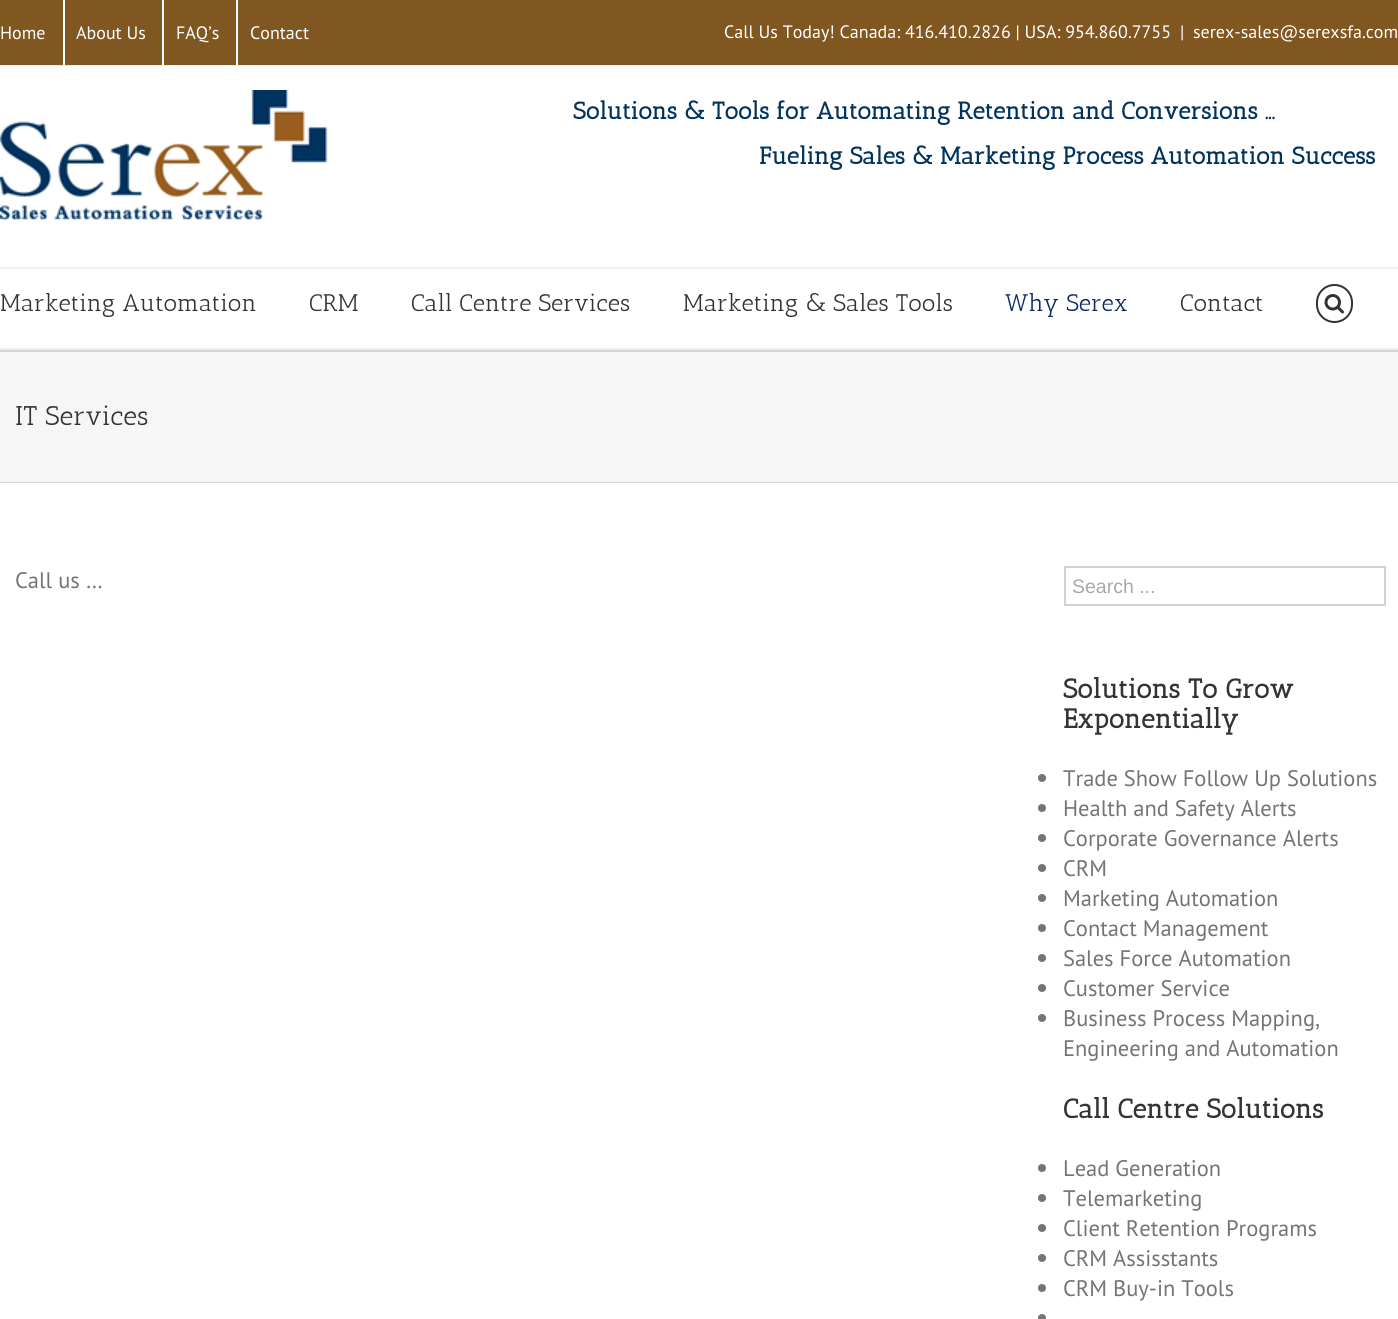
import math
import cairo

surface = cairo.ImageSurface(cairo.FORMAT_RGB24, 1398, 1319)
cr = cairo.Context(surface)
options = cairo.FontOptions()
options.set_hint_metrics(cairo.HINT_METRICS_OFF)
options.set_hint_style(cairo.HINT_STYLE_NONE)
cr.set_font_options(options)
cr.set_miter_limit(4)


def rgb(code):
    cr.set_source_rgb(*(v / 255 for v in bytes.fromhex(code[-6:])))


def rrect(x, y, w, h, r):
    cr.new_sub_path()
    for i, (u, v) in enumerate([(x + w - r, y + h - r), (x + r, y + h - r), (x + r, y + r), (x + w - r, y + r)]):
        cr.arc(u, v, r, i * math.pi / 2, (i + 1) * math.pi / 2)
    cr.close_path()


def image(path, x, y, w, h):
    cr.save()
    cr.set_source_surface(cairo.ImageSurface.create_from_png(path), x, y)
    cr.rectangle(x, y, w, h)
    cr.fill()
    cr.restore()


rgb("#ffffff")
cr.paint()
for x, y, w, h, color in [
    (0, 0, 1398, 65, "#805721"),
    (0, 65, 1398, 1, "#efefef"),
    (63, 0, 2, 65, "#ffffff"),
    (162, 0, 2, 65, "#ffffff"),
    (236, 0, 2, 65, "#ffffff"),
    (0, 267, 1398, 2, "#efefef"),
]:
    rgb(color)
    cr.rectangle(x, y, w, h)
    cr.fill()
image("img/1.png", 0, 90, 328, 131)
cr.rectangle(0, 348, 1398, 2)
cr.fill()
rrect(1317, 285, 35, 37, 17.5)
rgb("#333333")
cr.stroke()
image("img/2.png", 1324, 294, 20, 20)
for x, y, w, h, color in [
    (0, 352, 1398, 130, "#f6f6f6"),
    (0, 350, 1398, 2, "#d2d3d4"),
    (0, 482, 1398, 1, "#d2d3d4"),
]:
    rgb(color)
    cr.rectangle(x, y, w, h)
    cr.fill()
cr.rectangle(1065, 567, 320, 38)
rgb("#d2d2d2")
cr.stroke()
rgb("#747474")
cr.arc(1042, 778, 4, 0, 2 * math.pi)
cr.fill()
cr.arc(1042, 808, 4, 0, 2 * math.pi)
cr.fill()
cr.arc(1042, 838, 4, 0, 2 * math.pi)
cr.fill()
cr.arc(1042, 868, 4, 0, 2 * math.pi)
cr.fill()
cr.arc(1042, 898, 4, 0, 2 * math.pi)
cr.fill()
cr.arc(1042, 928, 4, 0, 2 * math.pi)
cr.fill()
cr.arc(1042, 958, 4, 0, 2 * math.pi)
cr.fill()
cr.arc(1042, 988, 4, 0, 2 * math.pi)
cr.fill()
cr.arc(1042, 1018, 4, 0, 2 * math.pi)
cr.fill()
cr.arc(1042, 1168, 4, 0, 2 * math.pi)
cr.fill()
cr.arc(1042, 1198, 4, 0, 2 * math.pi)
cr.fill()
cr.arc(1042, 1228, 4, 0, 2 * math.pi)
cr.fill()
cr.arc(1042, 1258, 4, 0, 2 * math.pi)
cr.fill()
cr.arc(1042, 1288, 4, 0, 2 * math.pi)
cr.fill()
cr.arc(1042, 1318, 4, 0, 2 * math.pi)
cr.fill()
cr.select_font_face("PT Sans")
cr.set_font_size(18)
rgb("#ffffff")
for x, y, s in [
    (0, 39, "Home"),
    (76, 39, "About Us"),
    (176, 39, "FAQ’s"),
    (250, 39, "Contact"),
    (724, 38, "Call Us Today! Canada: 416.410.2826 | USA: 954.860.7755"),
    (1180, 38, "|"),
    (1193, 38, "serex-sales@serexsfa.com"),
]:
    cr.move_to(x, y)
    cr.show_text(s)
cr.select_font_face("Antic Slab", cairo.FONT_SLANT_NORMAL, cairo.FONT_WEIGHT_BOLD)
cr.set_font_size(24)
rgb("#00335e")
cr.move_to(573, 119)
cr.show_text("Solutions & Tools for Automating Retention and Conversions ...")
cr.move_to(759, 164)
cr.show_text("Fueling Sales & Marketing Process Automation Success")
cr.select_font_face("Antic Slab")
rgb("#333333")
for x, y, s in [
    (0, 311, "Marketing Automation"),
    (309, 311, "CRM"),
    (411, 311, "Call Centre Services"),
    (683, 311, "Marketing & Sales Tools"),
]:
    cr.move_to(x, y)
    cr.show_text(s)
rgb("#0c2869")
cr.move_to(1005, 311)
cr.show_text("Why Serex")
rgb("#333333")
cr.move_to(1180, 311)
cr.show_text("Contact")
cr.set_font_size(27)
cr.move_to(15, 425)
cr.show_text("IT Services")
cr.select_font_face("PT Sans")
cr.set_font_size(22.5)
rgb("#747474")
cr.move_to(15, 588)
cr.show_text("Call us …")
cr.select_font_face("Liberation Sans")
cr.set_font_size(19.5)
rgb("#aaa9a9")
cr.move_to(1072, 593)
cr.show_text("Search ...")
cr.select_font_face("Antic Slab", cairo.FONT_SLANT_NORMAL, cairo.FONT_WEIGHT_BOLD)
cr.set_font_size(27)
rgb("#333333")
cr.move_to(1063, 698)
cr.show_text("Solutions To Grow")
cr.move_to(1063, 728)
cr.show_text("Exponentially")
cr.select_font_face("PT Sans")
cr.set_font_size(22.5)
rgb("#747474")
for x, y, s in [
    (1063, 786, "Trade Show Follow Up Solutions"),
    (1063, 816, "Health and Safety Alerts"),
    (1063, 846, "Corporate Governance Alerts"),
    (1063, 876, "CRM"),
    (1063, 906, "Marketing Automation"),
    (1063, 936, "Contact Management"),
    (1063, 966, "Sales Force Automation"),
    (1063, 996, "Customer Service"),
    (1063, 1026, "Business Process Mapping,"),
    (1063, 1056, "Engineering and Automation"),
]:
    cr.move_to(x, y)
    cr.show_text(s)
cr.select_font_face("Antic Slab", cairo.FONT_SLANT_NORMAL, cairo.FONT_WEIGHT_BOLD)
cr.set_font_size(27)
rgb("#333333")
cr.move_to(1063, 1118)
cr.show_text("Call Centre Solutions")
cr.select_font_face("PT Sans")
cr.set_font_size(22.5)
rgb("#747474")
for x, y, s in [
    (1063, 1176, "Lead Generation"),
    (1063, 1206, "Telemarketing"),
    (1063, 1236, "Client Retention Programs"),
    (1063, 1266, "CRM Assisstants"),
    (1063, 1296, "CRM Buy-in Tools"),
]:
    cr.move_to(x, y)
    cr.show_text(s)
surface.write_to_png("page.png")
